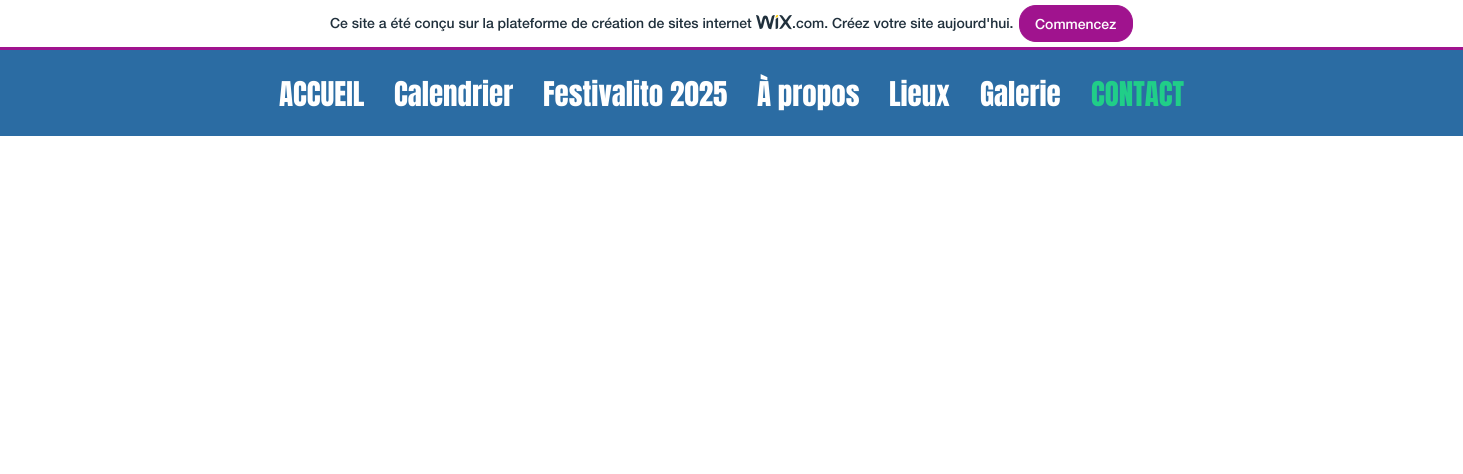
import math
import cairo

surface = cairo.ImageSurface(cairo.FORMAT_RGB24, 1463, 474)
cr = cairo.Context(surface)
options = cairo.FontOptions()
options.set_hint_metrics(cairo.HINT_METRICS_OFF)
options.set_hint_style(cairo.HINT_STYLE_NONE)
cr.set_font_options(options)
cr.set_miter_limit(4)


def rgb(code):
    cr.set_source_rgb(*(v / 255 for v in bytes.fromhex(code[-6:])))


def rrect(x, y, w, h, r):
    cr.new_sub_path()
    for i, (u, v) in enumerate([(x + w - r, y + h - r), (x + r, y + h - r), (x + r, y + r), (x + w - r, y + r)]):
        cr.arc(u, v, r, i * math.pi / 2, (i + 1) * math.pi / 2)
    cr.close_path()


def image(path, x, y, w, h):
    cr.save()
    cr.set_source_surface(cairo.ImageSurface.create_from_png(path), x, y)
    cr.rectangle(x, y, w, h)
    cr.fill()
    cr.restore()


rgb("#ffffff")
cr.paint()
rgb("#a0138e")
cr.rectangle(0, 47, 1463, 3)
cr.fill()
image("img/1.png", 756, 15, 36, 15)
rrect(1019.5, 5.5, 113, 36, 16.5)
cr.fill_preserve()
cr.set_line_width(1)
cr.stroke()
rgb("#2b6ca3")
cr.rectangle(0, 50, 1463, 86)
cr.fill()
cr.select_font_face("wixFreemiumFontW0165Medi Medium")
cr.set_font_size(14)
rgb("#20303c")
cr.move_to(330, 28)
cr.show_text("Ce site a été conçu sur la plateforme de création de sites internet")
cr.move_to(792, 28)
cr.show_text(".com. Créez votre site aujourd'hui.")
rgb("#ffffff")
cr.move_to(1035, 29)
cr.show_text("Commencez")
cr.select_font_face("Anton")
cr.set_font_size(29)
for x, y, s in [
    (279, 106, "ACCUEIL"),
    (394, 106, "Calendrier"),
    (543, 106, "Festivalito 2025"),
    (757, 106, "À propos"),
    (889, 106, "Lieux"),
    (980, 106, "Galerie"),
]:
    cr.move_to(x, y)
    cr.show_text(s)
rgb("#20ce88")
cr.move_to(1091, 106)
cr.show_text("CONTACT")
surface.write_to_png("page.png")
